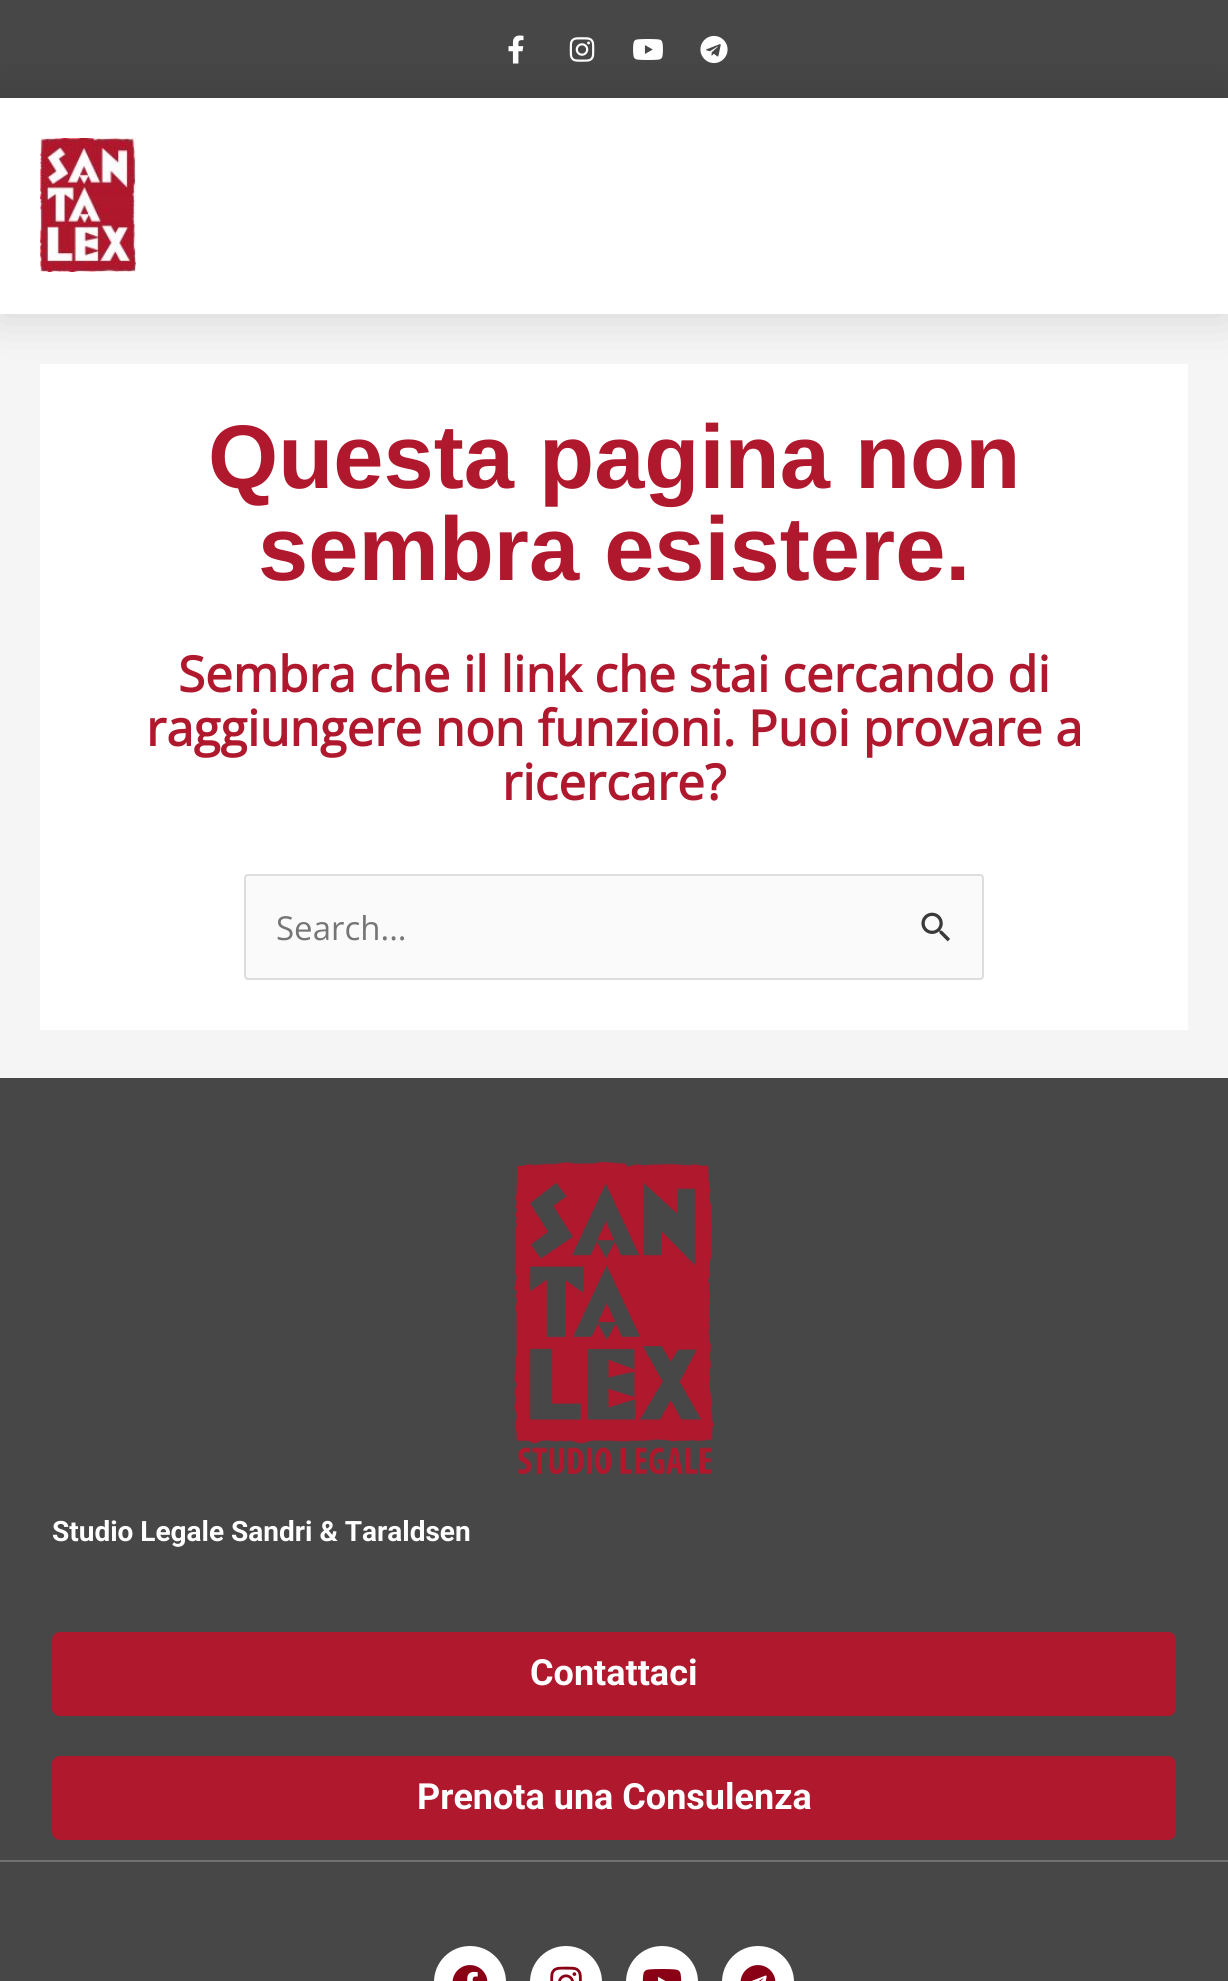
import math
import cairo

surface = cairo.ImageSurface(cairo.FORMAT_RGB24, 1228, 1981)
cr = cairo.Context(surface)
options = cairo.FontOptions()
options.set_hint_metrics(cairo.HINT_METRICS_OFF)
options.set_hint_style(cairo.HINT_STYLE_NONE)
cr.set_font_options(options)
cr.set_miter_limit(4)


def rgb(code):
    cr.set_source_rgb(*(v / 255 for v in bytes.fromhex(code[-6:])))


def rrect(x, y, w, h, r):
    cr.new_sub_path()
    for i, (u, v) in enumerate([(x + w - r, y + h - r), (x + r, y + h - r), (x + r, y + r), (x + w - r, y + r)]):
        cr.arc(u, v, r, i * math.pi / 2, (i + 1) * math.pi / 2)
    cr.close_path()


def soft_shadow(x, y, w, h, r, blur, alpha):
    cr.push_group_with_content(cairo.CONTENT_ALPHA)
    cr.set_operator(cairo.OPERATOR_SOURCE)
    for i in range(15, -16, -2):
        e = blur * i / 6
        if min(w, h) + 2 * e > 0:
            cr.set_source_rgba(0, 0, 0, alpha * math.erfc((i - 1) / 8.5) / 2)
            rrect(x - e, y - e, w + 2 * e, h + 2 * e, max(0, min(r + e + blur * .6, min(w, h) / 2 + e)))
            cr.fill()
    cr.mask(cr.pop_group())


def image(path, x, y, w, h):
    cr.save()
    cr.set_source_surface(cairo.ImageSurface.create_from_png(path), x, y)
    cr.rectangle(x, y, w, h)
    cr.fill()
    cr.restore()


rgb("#f5f5f5")
cr.paint()
rgb("#474747")
cr.rectangle(0, 0, 1228, 98)
cr.fill()
image("img/1.png", 508, 35, 16, 29)
image("img/2.png", 569, 37, 26, 25)
image("img/3.png", 633, 39, 30, 21)
image("img/4.png", 700, 35, 28, 29)
rgb("#ffffff")
cr.rectangle(40, 364, 1148, 666)
cr.fill()
rgb("#000000")
soft_shadow(0, 98, 1228, 216, 0, 24, 0.15)
rgb("#ffffff")
cr.rectangle(0, 98, 1228, 216)
cr.fill()
image("img/5.png", 40, 138, 96, 134)
rgb("#fafafa")
rrect(245, 875, 738, 104, 3)
cr.fill_preserve()
rgb("#dddddd")
cr.stroke()
image("img/6.png", 921, 912, 29, 30)
rgb("#474747")
cr.rectangle(0, 1078, 1228, 903)
cr.fill()
image("img/7.png", 514, 1162, 200, 312)
rgb("#b0182e")
rrect(52, 1632, 1124, 84, 8)
cr.fill()
rrect(52, 1756, 1124, 84, 8)
cr.fill()
rgb("#717171")
cr.rectangle(0, 1860, 1228, 2)
cr.fill()
rgb("#ffffff")
rrect(434, 1946, 72, 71, 36)
cr.fill()
image("img/8.png", 452, 1965, 36, 16)
rrect(530, 1946, 72, 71, 36)
cr.fill()
image("img/9.png", 550, 1966, 32, 15)
rrect(626, 1946, 72, 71, 36)
cr.fill()
image("img/10.png", 642, 1969, 40, 12)
rrect(722, 1946, 72, 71, 36)
cr.fill()
image("img/11.png", 740, 1965, 36, 16)
cr.select_font_face("Liberation Sans", cairo.FONT_SLANT_NORMAL, cairo.FONT_WEIGHT_BOLD)
cr.set_font_size(90.25)
rgb("#b0182e")
cr.move_to(208, 488)
cr.show_text("Questa pagina non")
cr.move_to(258, 580)
cr.show_text("sembra esistere.")
cr.select_font_face("Open Sans", cairo.FONT_SLANT_NORMAL, cairo.FONT_WEIGHT_BOLD)
cr.set_font_size(49.25)
for x, y, s in [
    (178, 692, "Sembra che il link che stai cercando di"),
    (146, 746, "raggiungere non funzioni. Puoi provare a"),
    (502, 800, "ricercare?"),
]:
    cr.move_to(x, y)
    cr.show_text(s)
cr.select_font_face("Open Sans")
cr.set_font_size(33)
rgb("#757575")
cr.move_to(276, 940)
cr.show_text("Search...")
cr.select_font_face("Roboto", cairo.FONT_SLANT_NORMAL, cairo.FONT_WEIGHT_BOLD)
cr.set_font_size(28)
rgb("#ffffff")
cr.move_to(52, 1541)
cr.show_text("Studio Legale Sandri & Taraldsen")
cr.set_font_size(36)
cr.move_to(530, 1685)
cr.show_text("Contattaci")
cr.move_to(417, 1809)
cr.show_text("Prenota una Consulenza")
surface.write_to_png("page.png")
